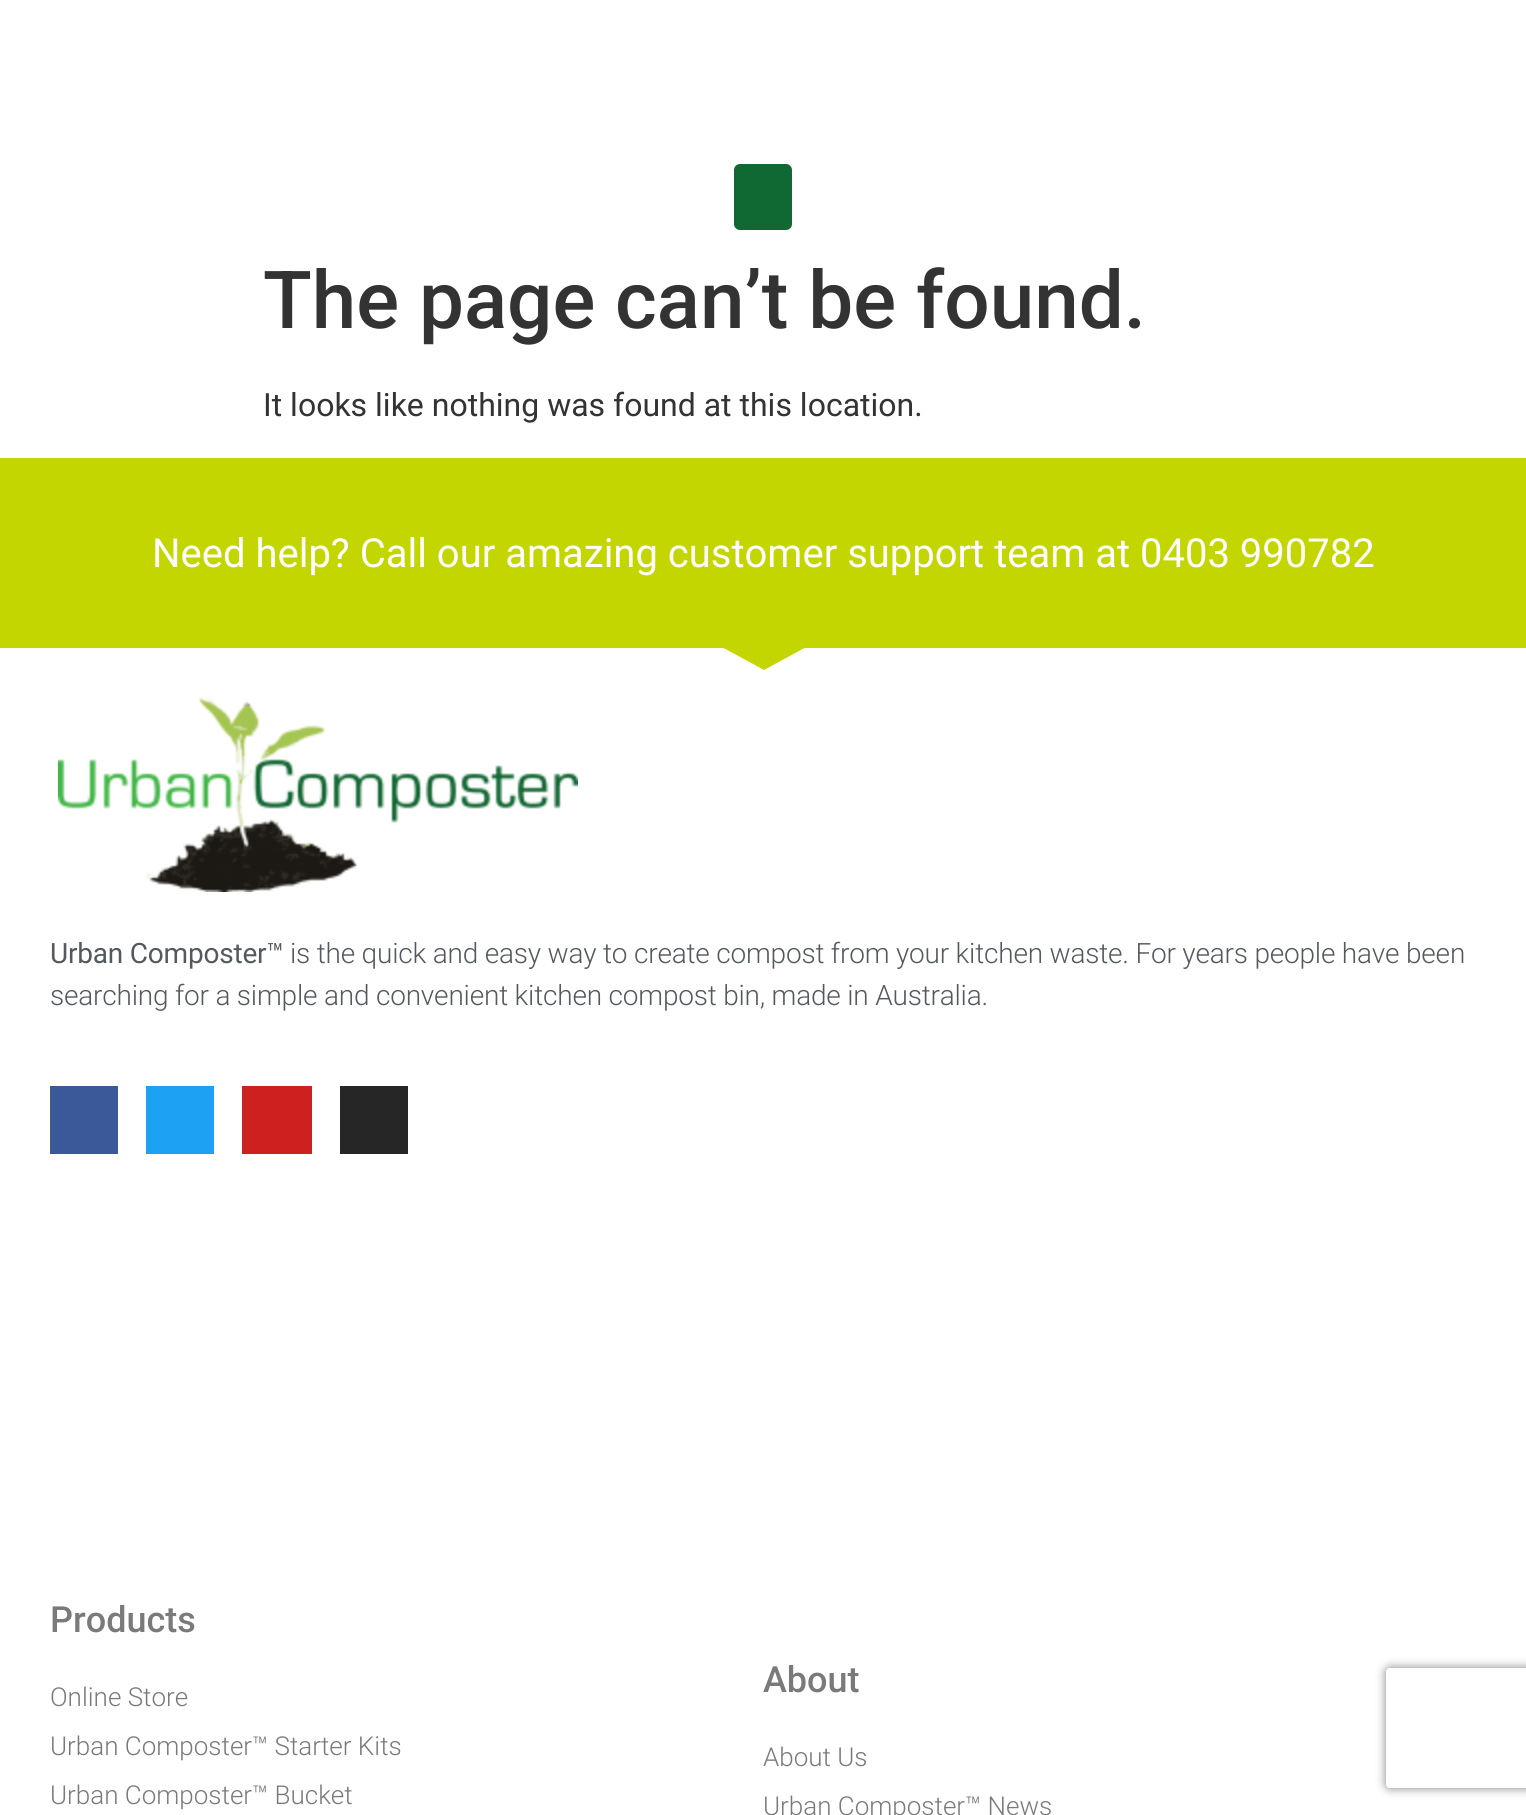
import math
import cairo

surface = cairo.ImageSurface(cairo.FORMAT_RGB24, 1526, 1815)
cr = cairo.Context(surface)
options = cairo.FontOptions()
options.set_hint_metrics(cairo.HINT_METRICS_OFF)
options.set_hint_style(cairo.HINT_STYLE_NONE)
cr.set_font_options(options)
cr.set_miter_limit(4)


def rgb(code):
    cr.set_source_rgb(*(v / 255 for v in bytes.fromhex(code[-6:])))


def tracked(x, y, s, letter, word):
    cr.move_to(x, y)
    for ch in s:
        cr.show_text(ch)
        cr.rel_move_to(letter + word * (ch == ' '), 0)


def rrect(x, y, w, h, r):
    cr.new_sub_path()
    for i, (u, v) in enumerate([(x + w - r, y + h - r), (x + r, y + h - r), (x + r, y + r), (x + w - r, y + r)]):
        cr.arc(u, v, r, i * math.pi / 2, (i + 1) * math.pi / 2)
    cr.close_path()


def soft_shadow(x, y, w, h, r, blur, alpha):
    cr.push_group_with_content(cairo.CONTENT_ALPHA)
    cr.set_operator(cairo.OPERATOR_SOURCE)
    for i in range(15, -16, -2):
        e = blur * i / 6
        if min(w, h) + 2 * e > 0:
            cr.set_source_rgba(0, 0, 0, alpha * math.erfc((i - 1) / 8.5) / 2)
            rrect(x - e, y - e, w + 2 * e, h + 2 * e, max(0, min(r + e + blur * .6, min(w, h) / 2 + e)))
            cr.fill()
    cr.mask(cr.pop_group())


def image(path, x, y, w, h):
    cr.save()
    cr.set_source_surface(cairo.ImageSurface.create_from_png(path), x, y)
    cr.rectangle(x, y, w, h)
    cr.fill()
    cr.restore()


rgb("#ffffff")
cr.paint()
rgb("#106832")
rrect(734, 164, 58, 66, 6)
cr.fill()
rgb("#c4d602")
cr.rectangle(0, 458, 1526, 190)
cr.fill()
cr.new_path()
cr.move_to(764, 670)
cr.line_to(720, 646)
cr.line_to(808, 646)
cr.close_path()
cr.fill()
image("img/1.png", 58, 698, 520, 194)
for x, y, w, h, color in [
    (50, 1086, 68, 68, "#3b5998"),
    (146, 1086, 68, 68, "#1da1f2"),
    (242, 1086, 70, 68, "#cd201f"),
    (340, 1086, 68, 68, "#262626"),
]:
    rgb(color)
    cr.rectangle(x, y, w, h)
    cr.fill()
cr.save()
cr.set_fill_rule(cairo.FILL_RULE_EVEN_ODD)
cr.new_path()
cr.move_to(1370, 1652)
cr.line_to(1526, 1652)
cr.line_to(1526, 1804)
cr.line_to(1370, 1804)
cr.close_path()
cr.move_to(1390, 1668)
cr.line_to(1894, 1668)
cr.curve_to(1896, 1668, 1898, 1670, 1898, 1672)
cr.line_to(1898, 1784)
cr.curve_to(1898, 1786, 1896, 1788, 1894, 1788)
cr.line_to(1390, 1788)
cr.curve_to(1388, 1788, 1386, 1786, 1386, 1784)
cr.line_to(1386, 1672)
cr.curve_to(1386, 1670, 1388, 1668, 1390, 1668)
cr.close_path()
cr.clip()
rgb("#808080")
soft_shadow(1386, 1668, 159, 120, 4, 5, 1)
cr.restore()
cr.select_font_face("Roboto Medium")
cr.set_font_size(80)
rgb("#333333")
cr.move_to(263, 328)
cr.show_text("The page can’t be found.")
cr.select_font_face("Roboto")
cr.set_font_size(32)
cr.move_to(263, 416)
cr.show_text("It looks like nothing was found at this location.")
cr.set_font_size(40)
rgb("#ffffff")
cr.move_to(152, 567)
cr.show_text("Need help? Call our amazing customer support team at 0403 990782")
cr.set_font_size(28)
rgb("#54595f")
tracked(50, 963, "Urban Composter™", -0.2, 0)
cr.select_font_face("Roboto Light")
tracked(290, 963, "is the quick and easy way to create compost from your kitchen waste. For years people have been", -0.2, 0)
tracked(50, 1005, "searching for a simple and convenient kitchen compost bin, made in Australia.", -0.2, 0)
cr.select_font_face("Roboto Medium")
cr.set_font_size(36)
rgb("#7a7a7a")
cr.move_to(50, 1632)
cr.show_text("Products")
cr.select_font_face("Roboto Light")
cr.set_font_size(26)
for x, y, s in [
    (50, 1706, "Online Store"),
    (50, 1755, "Urban Composter™ Starter Kits"),
    (50, 1804, "Urban Composter™ Bucket"),
]:
    cr.move_to(x, y)
    cr.show_text(s)
cr.select_font_face("Roboto Medium")
cr.set_font_size(36)
cr.move_to(763, 1692)
cr.show_text("About")
cr.select_font_face("Roboto Light")
cr.set_font_size(26)
cr.move_to(763, 1766)
cr.show_text("About Us")
cr.move_to(763, 1815)
cr.show_text("Urban Composter™ News")
surface.write_to_png("page.png")
